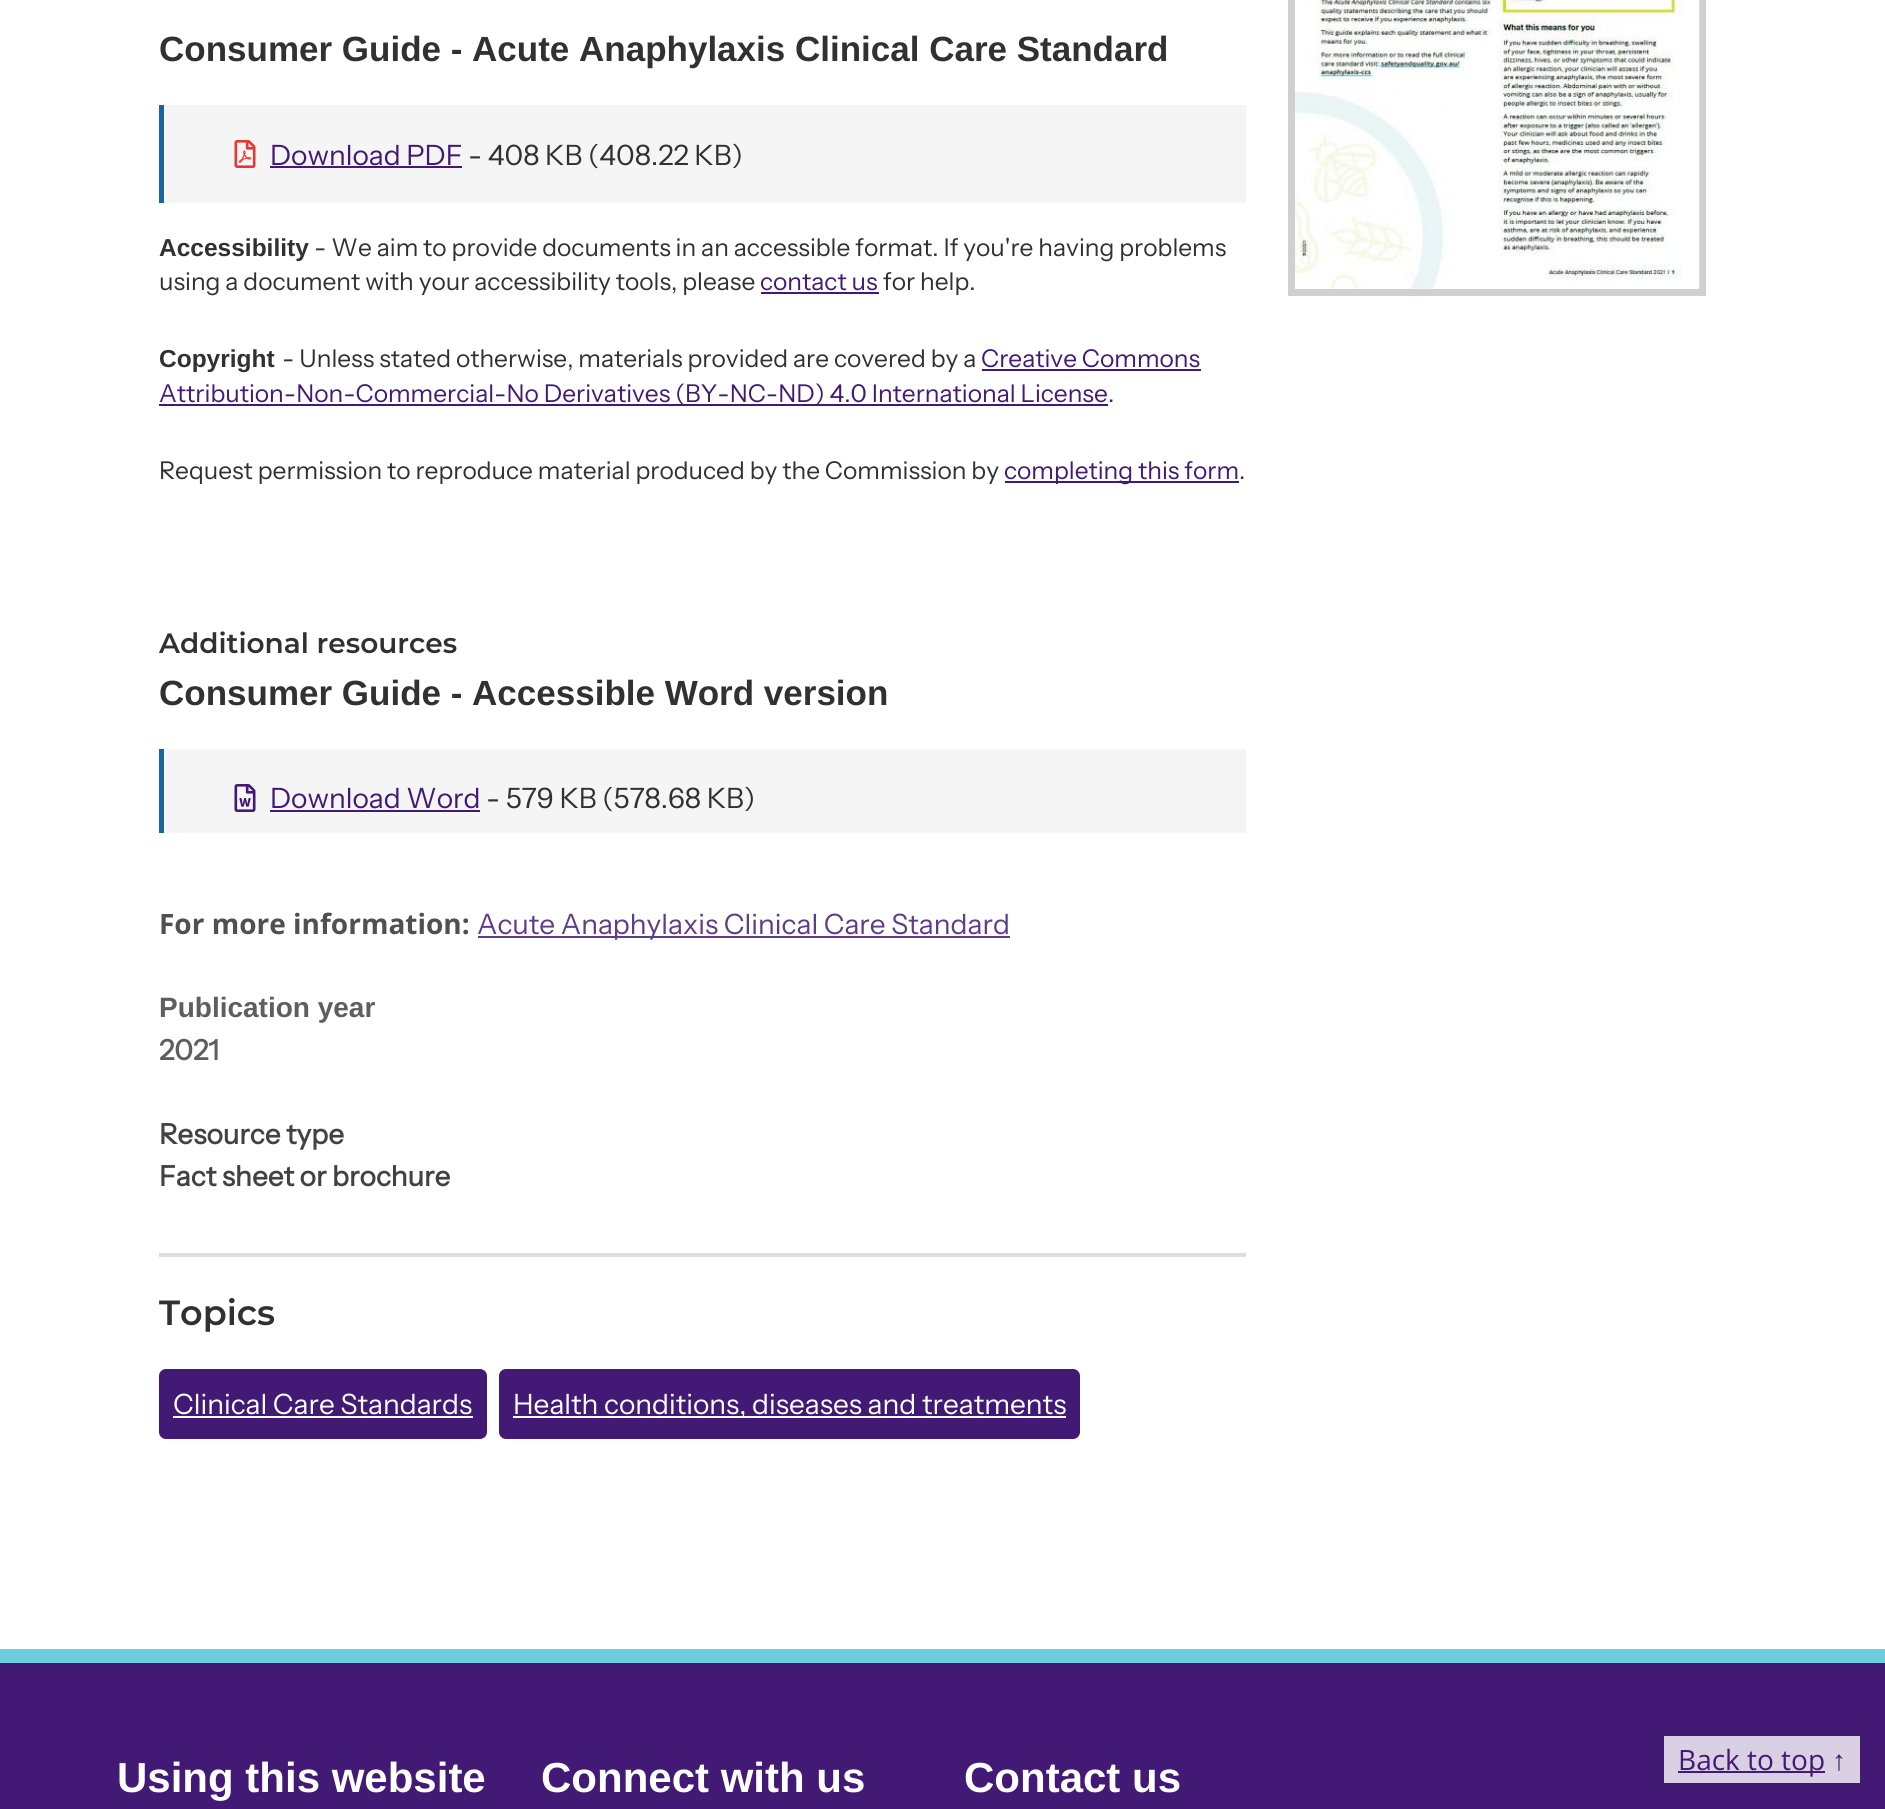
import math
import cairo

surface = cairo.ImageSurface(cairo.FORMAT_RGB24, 1885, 1809)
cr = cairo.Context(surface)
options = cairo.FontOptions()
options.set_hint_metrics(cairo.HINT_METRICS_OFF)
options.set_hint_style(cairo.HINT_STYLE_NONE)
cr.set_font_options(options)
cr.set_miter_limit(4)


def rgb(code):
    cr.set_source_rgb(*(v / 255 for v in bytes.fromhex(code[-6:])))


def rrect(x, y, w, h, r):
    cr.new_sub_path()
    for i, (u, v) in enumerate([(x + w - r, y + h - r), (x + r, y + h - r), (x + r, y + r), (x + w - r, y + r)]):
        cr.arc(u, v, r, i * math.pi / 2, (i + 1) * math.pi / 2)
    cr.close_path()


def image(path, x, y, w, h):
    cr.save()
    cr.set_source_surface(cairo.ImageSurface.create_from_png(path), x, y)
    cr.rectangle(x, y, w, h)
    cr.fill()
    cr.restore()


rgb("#ffffff")
cr.paint()
rgb("#f5f5f5")
cr.rectangle(164, 105, 1082, 98)
cr.fill()
rgb("#1a659c")
cr.rectangle(159, 105, 5, 98)
cr.fill()
image("img/1.png", 234, 140, 22, 28)
for x, y, w, h, color in [
    (270, 166, 192, 2, "#421a75"),
    (761, 292, 118, 2, "#421a75"),
    (982, 369, 219, 2, "#421a75"),
    (159, 404, 949, 2, "#421a75"),
    (1005, 481, 234, 2, "#421a75"),
    (164, 749, 1082, 84, "#f5f5f5"),
    (159, 749, 5, 84, "#1a659c"),
]:
    rgb(color)
    cr.rectangle(x, y, w, h)
    cr.fill()
image("img/2.png", 234, 784, 22, 28)
for x, y, w, h, color in [
    (270, 810, 210, 2, "#421a75"),
    (478, 936, 532, 2, "#5e3c8a"),
    (159, 1253, 1087, 4, "#dddddd"),
]:
    rgb(color)
    cr.rectangle(x, y, w, h)
    cr.fill()
rgb("#421a75")
rrect(159, 1369, 328, 70, 7)
cr.fill()
rgb("#ffffff")
cr.rectangle(173, 1416, 300, 2)
cr.fill()
rgb("#421a75")
rrect(499, 1369, 581, 70, 7)
cr.fill()
rgb("#ffffff")
cr.rectangle(513, 1416, 553, 2)
cr.fill()
cr.rectangle(1291.5, -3.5, 411, 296)
rgb("#d0d0d0")
cr.set_line_width(7)
cr.stroke()
image("img/3.png", 1295, 0, 405, 289)
for x, y, w, h, color in [
    (0, 1663, 1885, 146, "#421a75"),
    (0, 1649, 1885, 14, "#6eccdf"),
    (1664, 1736, 196, 47, "#d9d1e3"),
    (1678, 1771, 147, 2, "#421a75"),
]:
    rgb(color)
    cr.rectangle(x, y, w, h)
    cr.fill()
cr.select_font_face("Liberation Sans", cairo.FONT_SLANT_NORMAL, cairo.FONT_WEIGHT_BOLD)
cr.set_font_size(35)
rgb("#313131")
cr.move_to(159, 61)
cr.show_text("Consumer Guide - Acute Anaphylaxis Clinical Care Standard")
cr.select_font_face("Instrument Sans")
cr.set_font_size(28)
rgb("#421a75")
cr.move_to(270, 165)
cr.show_text("Download PDF")
rgb("#313131")
cr.move_to(468, 165)
cr.show_text("- 408 KB (408.22 KB)")
cr.select_font_face("Liberation Sans", cairo.FONT_SLANT_NORMAL, cairo.FONT_WEIGHT_BOLD)
cr.set_font_size(24.5)
cr.move_to(159, 256)
cr.show_text("Accessibility")
cr.select_font_face("Instrument Sans")
cr.move_to(314, 256)
cr.show_text("- We aim to provide documents in an accessible format. If you're having problems")
cr.move_to(159, 290)
cr.show_text("using a document with your accessibility tools, please")
rgb("#421a75")
cr.move_to(760, 290)
cr.show_text("contact us")
rgb("#313131")
cr.move_to(883, 290)
cr.show_text("for help.")
cr.select_font_face("Liberation Sans", cairo.FONT_SLANT_NORMAL, cairo.FONT_WEIGHT_BOLD)
cr.move_to(159, 367)
cr.show_text("Copyright")
cr.select_font_face("Instrument Sans")
cr.move_to(282, 367)
cr.show_text("- Unless stated otherwise, materials provided are covered by a")
rgb("#421a75")
cr.move_to(981, 367)
cr.show_text("Creative Commons")
cr.move_to(159, 402)
cr.show_text("Attribution-Non-Commercial-No Derivatives (BY-NC-ND) 4.0 International License")
rgb("#313131")
cr.move_to(1108, 402)
cr.show_text(".")
cr.move_to(159, 479)
cr.show_text("Request permission to reproduce material produced by the Commission by")
rgb("#421a75")
cr.move_to(1004, 479)
cr.show_text("completing this form")
rgb("#313131")
cr.move_to(1239, 479)
cr.show_text(".")
cr.select_font_face("Montserrat SemiBold")
cr.set_font_size(28)
cr.move_to(159, 653)
cr.show_text("Additional resources")
cr.select_font_face("Liberation Sans", cairo.FONT_SLANT_NORMAL, cairo.FONT_WEIGHT_BOLD)
cr.set_font_size(35)
cr.move_to(159, 705)
cr.show_text("Consumer Guide - Accessible Word version")
cr.select_font_face("Instrument Sans")
cr.set_font_size(28)
rgb("#421a75")
cr.move_to(270, 808)
cr.show_text("Download Word")
rgb("#313131")
cr.move_to(486, 808)
cr.show_text("- 579 KB (578.68 KB)")
cr.select_font_face("Open Sans", cairo.FONT_SLANT_NORMAL, cairo.FONT_WEIGHT_BOLD)
rgb("#505050")
cr.move_to(159, 934)
cr.show_text("For more information:")
cr.select_font_face("Instrument Sans")
rgb("#5e3c8a")
cr.move_to(477, 934)
cr.show_text("Acute Anaphylaxis Clinical Care Standard")
cr.select_font_face("Liberation Sans", cairo.FONT_SLANT_NORMAL, cairo.FONT_WEIGHT_BOLD)
rgb("#5e5e5e")
cr.move_to(159, 1017)
cr.show_text("Publication year")
cr.select_font_face("Instrument Sans", cairo.FONT_SLANT_NORMAL, cairo.FONT_WEIGHT_BOLD)
cr.move_to(159, 1060)
cr.show_text("2021")
rgb("#424242")
cr.move_to(159, 1144)
cr.show_text("Resource type")
cr.move_to(159, 1186)
cr.show_text("Fact sheet or brochure")
cr.select_font_face("Montserrat SemiBold")
cr.set_font_size(35)
rgb("#313131")
cr.move_to(159, 1325)
cr.show_text("Topics")
cr.select_font_face("Instrument Sans")
cr.set_font_size(28)
rgb("#ffffff")
cr.move_to(173, 1414)
cr.show_text("Clinical Care Standards")
cr.move_to(513, 1414)
cr.show_text("Health conditions, diseases and treatments")
cr.select_font_face("Liberation Sans", cairo.FONT_SLANT_NORMAL, cairo.FONT_WEIGHT_BOLD)
cr.set_font_size(42)
for x, y, s in [
    (117, 1792, "Using this website"),
    (541, 1792, "Connect with us"),
    (964, 1792, "Contact us"),
]:
    cr.move_to(x, y)
    cr.show_text(s)
cr.select_font_face("Open Sans")
cr.set_font_size(28)
rgb("#421a75")
cr.move_to(1678, 1770)
cr.show_text("Back to top")
cr.select_font_face("Liberation Sans")
cr.move_to(1832, 1770)
cr.show_text("↑")
surface.write_to_png("page.png")
